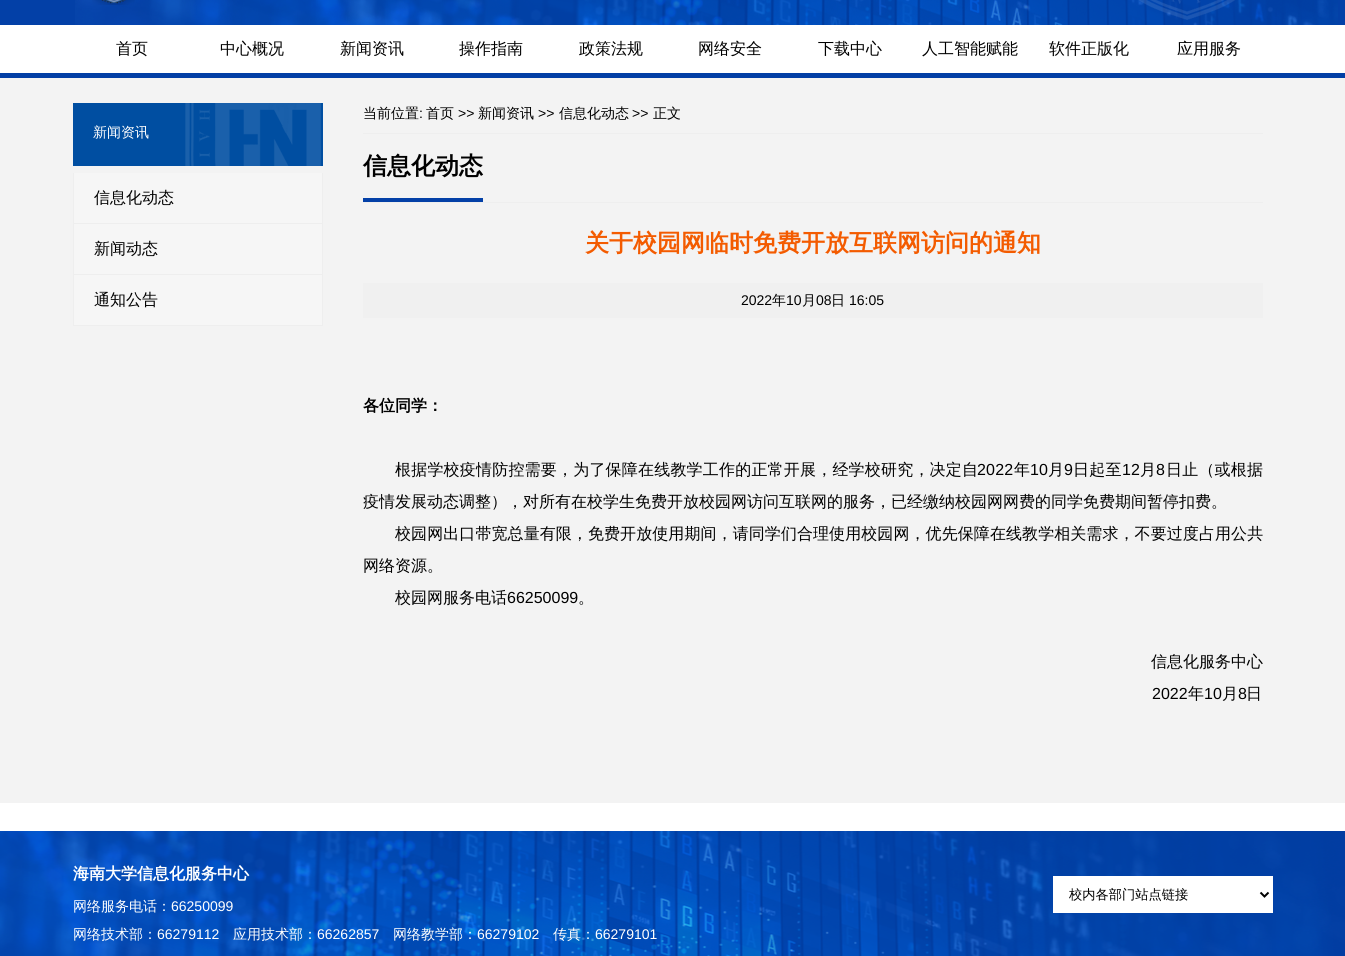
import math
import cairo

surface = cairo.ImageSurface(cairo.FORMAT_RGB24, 1345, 956)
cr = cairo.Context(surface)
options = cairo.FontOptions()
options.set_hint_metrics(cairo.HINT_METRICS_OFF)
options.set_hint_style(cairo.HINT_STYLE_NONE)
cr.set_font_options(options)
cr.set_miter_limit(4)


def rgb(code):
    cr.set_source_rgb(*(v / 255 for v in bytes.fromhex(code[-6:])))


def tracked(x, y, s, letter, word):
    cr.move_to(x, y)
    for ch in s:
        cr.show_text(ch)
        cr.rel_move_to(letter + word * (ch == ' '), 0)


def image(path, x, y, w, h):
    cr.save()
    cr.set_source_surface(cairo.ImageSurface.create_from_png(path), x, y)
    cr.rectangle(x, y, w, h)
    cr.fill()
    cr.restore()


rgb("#ffffff")
cr.paint()
rgb("#0340a7")
cr.rectangle(0, 0, 1345, 25)
cr.fill()
image("img/1.png", 75, 0, 1263, 25)
image("img/2.png", 1139, 0, 96, 20)
image("img/3.png", 92, 0, 43, 5)
for x, y, w, h, color in [
    (0, 73, 1345, 5, "#023fa5"),
    (0, 78, 1345, 725, "#f3f3f3"),
    (73, 103, 250, 63, "#004ea1"),
]:
    rgb(color)
    cr.rectangle(x, y, w, h)
    cr.fill()
image("img/4.png", 185, 103, 136, 63)
for x, y, w, h, color in [
    (322, 173, 1, 153, "#eeeeee"),
    (73, 223, 250, 1, "#eeeeee"),
    (73, 173, 1, 51, "#eeeeee"),
    (74, 173, 248, 50, "#f6f6f6"),
    (73, 274, 250, 1, "#eeeeee"),
    (73, 224, 1, 51, "#eeeeee"),
    (74, 224, 248, 50, "#f6f6f6"),
    (73, 325, 250, 1, "#eeeeee"),
    (73, 275, 1, 51, "#eeeeee"),
    (74, 275, 248, 50, "#f6f6f6"),
    (363, 133, 900, 1, "#eeeeee"),
    (363, 202, 900, 1, "#eeeeee"),
    (363, 198, 120, 4, "#0340a7"),
    (363, 283, 900, 35, "#f0f0f0"),
]:
    rgb(color)
    cr.rectangle(x, y, w, h)
    cr.fill()
image("img/5.png", 0, 831, 1345, 125)
rgb("#ffffff")
cr.rectangle(1053, 876, 220, 37)
cr.fill()
cr.new_path()
cr.move_to(1260.5, 892.5)
cr.line_to(1264.5, 896.5)
cr.line_to(1268.5, 892.5)
rgb("#000000")
cr.stroke()
cr.select_font_face("WenQuanYi Zen Hei Medium")
cr.set_font_size(16)
for x, y, s in [
    (116, 54, "首页"),
    (220, 54, "中心概况"),
    (340, 54, "新闻资讯"),
    (459, 54, "操作指南"),
    (579, 54, "政策法规"),
    (698, 54, "网络安全"),
    (818, 54, "下载中心"),
    (922, 54, "人工智能赋能"),
    (1049, 54, "软件正版化"),
    (1177, 54, "应用服务"),
]:
    cr.move_to(x, y)
    cr.show_text(s)
cr.set_font_size(14)
rgb("#ffffff")
cr.move_to(93, 137)
cr.show_text("新闻资讯")
cr.set_font_size(16)
rgb("#000000")
for x, y, s in [
    (94, 203, "信息化动态"),
    (94, 254, "新闻动态"),
    (94, 305, "通知公告"),
]:
    cr.move_to(x, y)
    cr.show_text(s)
cr.set_font_size(14)
cr.move_to(363, 118)
cr.show_text("当前位置")
cr.select_font_face("Liberation Sans")
cr.move_to(419, 118)
cr.show_text(":")
cr.select_font_face("WenQuanYi Zen Hei Medium")
cr.move_to(426, 118)
cr.show_text("首页")
cr.select_font_face("Liberation Sans")
cr.move_to(458, 118)
cr.show_text(">>")
cr.select_font_face("WenQuanYi Zen Hei Medium")
cr.move_to(478, 118)
cr.show_text("新闻资讯")
cr.select_font_face("Liberation Sans")
cr.move_to(538, 118)
cr.show_text(">>")
cr.select_font_face("WenQuanYi Zen Hei Medium")
cr.move_to(559, 118)
cr.show_text("信息化动态")
cr.select_font_face("Liberation Sans")
cr.move_to(632, 118)
cr.show_text(">>")
cr.select_font_face("WenQuanYi Zen Hei Medium")
cr.move_to(653, 118)
cr.show_text("正文")
cr.select_font_face("WenQuanYi Zen Hei", cairo.FONT_SLANT_NORMAL, cairo.FONT_WEIGHT_BOLD)
cr.set_font_size(24)
cr.move_to(363, 174)
cr.show_text("信息化动态")
rgb("#f35b00")
cr.move_to(585, 251)
cr.show_text("关于校园网临时免费开放互联网访问的通知")
cr.select_font_face("Liberation Sans")
cr.set_font_size(14)
rgb("#000000")
cr.move_to(741, 305)
cr.show_text("2022")
cr.select_font_face("WenQuanYi Zen Hei Medium")
cr.move_to(772, 305)
cr.show_text("年")
cr.select_font_face("Liberation Sans")
cr.move_to(786, 305)
cr.show_text("10")
cr.select_font_face("WenQuanYi Zen Hei Medium")
cr.move_to(802, 305)
cr.show_text("月")
cr.select_font_face("Liberation Sans")
cr.move_to(816, 305)
cr.show_text("08")
cr.select_font_face("WenQuanYi Zen Hei Medium")
cr.move_to(831, 305)
cr.show_text("日")
cr.select_font_face("Liberation Sans")
cr.move_to(849, 305)
cr.show_text("16:05")
cr.select_font_face("WenQuanYi Zen Hei", cairo.FONT_SLANT_NORMAL, cairo.FONT_WEIGHT_BOLD)
cr.set_font_size(16)
cr.move_to(363, 411)
cr.show_text("各位同学：")
cr.select_font_face("WenQuanYi Zen Hei Medium")
tracked(395, 475, "根据学校疫情防控需要，为了保障在线教学工作的正常开展，经学校研究，决定自", 0.2, 0)
cr.select_font_face("Liberation Sans")
tracked(977, 475, "2022", 0.2, 0)
cr.select_font_face("WenQuanYi Zen Hei Medium")
tracked(1014, 475, "年", 0.2, 0)
cr.select_font_face("Liberation Sans")
tracked(1030, 475, "10", 0.2, 0)
cr.select_font_face("WenQuanYi Zen Hei Medium")
tracked(1048, 475, "月", 0.2, 0)
cr.select_font_face("Liberation Sans")
tracked(1064, 475, "9", 0.2, 0)
cr.select_font_face("WenQuanYi Zen Hei Medium")
tracked(1073, 475, "日起至", 0.2, 0)
cr.select_font_face("Liberation Sans")
tracked(1122, 475, "12", 0.2, 0)
cr.select_font_face("WenQuanYi Zen Hei Medium")
tracked(1140, 475, "月", 0.2, 0)
cr.select_font_face("Liberation Sans")
tracked(1156, 475, "8", 0.2, 0)
cr.select_font_face("WenQuanYi Zen Hei Medium")
tracked(1166, 475, "日止（或根据", 0.2, 0)
cr.move_to(363, 507)
cr.show_text("疫情发展动态调整），对所有在校学生免费开放校园网访问互联网的服务，已经缴纳校园网网费的同学免费期间暂停扣费。")
tracked(395, 539, "校园网出口带宽总量有限，免费开放使用期间，请同学们合理使用校园网，优先保障在线教学相关需求，不要过度占用公共", 0.08, 0)
cr.move_to(363, 571)
cr.show_text("网络资源。")
cr.move_to(395, 603)
cr.show_text("校园网服务电话")
cr.select_font_face("Liberation Sans")
cr.move_to(507, 603)
cr.show_text("66250099")
cr.select_font_face("WenQuanYi Zen Hei Medium")
cr.move_to(578, 603)
cr.show_text("。")
cr.move_to(1151, 667)
cr.show_text("信息化服务中心")
cr.select_font_face("Liberation Sans")
cr.move_to(1152, 699)
cr.show_text("2022")
cr.select_font_face("WenQuanYi Zen Hei Medium")
cr.move_to(1188, 699)
cr.show_text("年")
cr.select_font_face("Liberation Sans")
cr.move_to(1204, 699)
cr.show_text("10")
cr.select_font_face("WenQuanYi Zen Hei Medium")
cr.move_to(1222, 699)
cr.show_text("月")
cr.select_font_face("Liberation Sans")
cr.move_to(1238, 699)
cr.show_text("8")
cr.select_font_face("WenQuanYi Zen Hei Medium")
cr.move_to(1246, 699)
cr.show_text("日")
cr.select_font_face("WenQuanYi Zen Hei", cairo.FONT_SLANT_NORMAL, cairo.FONT_WEIGHT_BOLD)
rgb("#ffffff")
cr.move_to(73, 879)
cr.show_text("海南大学信息化服务中心")
cr.select_font_face("WenQuanYi Zen Hei Medium")
cr.set_font_size(14)
cr.move_to(73, 911)
cr.show_text("网络服务电话：")
cr.select_font_face("Liberation Sans")
cr.move_to(171, 911)
cr.show_text("66250099")
cr.select_font_face("WenQuanYi Zen Hei Medium")
cr.move_to(73, 939)
cr.show_text("网络技术部：")
cr.select_font_face("Liberation Sans")
cr.move_to(157, 939)
cr.show_text("66279112")
cr.select_font_face("WenQuanYi Zen Hei Medium")
cr.move_to(233, 939)
cr.show_text("应用技术部：")
cr.select_font_face("Liberation Sans")
cr.move_to(317, 939)
cr.show_text("66262857")
cr.select_font_face("WenQuanYi Zen Hei Medium")
cr.move_to(393, 939)
cr.show_text("网络教学部：")
cr.select_font_face("Liberation Sans")
cr.move_to(477, 939)
cr.show_text("66279102")
cr.select_font_face("WenQuanYi Zen Hei Medium")
cr.move_to(553, 939)
cr.show_text("传真：")
cr.select_font_face("Liberation Sans")
cr.move_to(595, 939)
cr.show_text("66279101")
cr.select_font_face("WenQuanYi Zen Hei Medium")
cr.set_font_size(13.25)
rgb("#000000")
cr.move_to(1069, 899)
cr.show_text("校内各部门站点链接")
surface.write_to_png("page.png")
